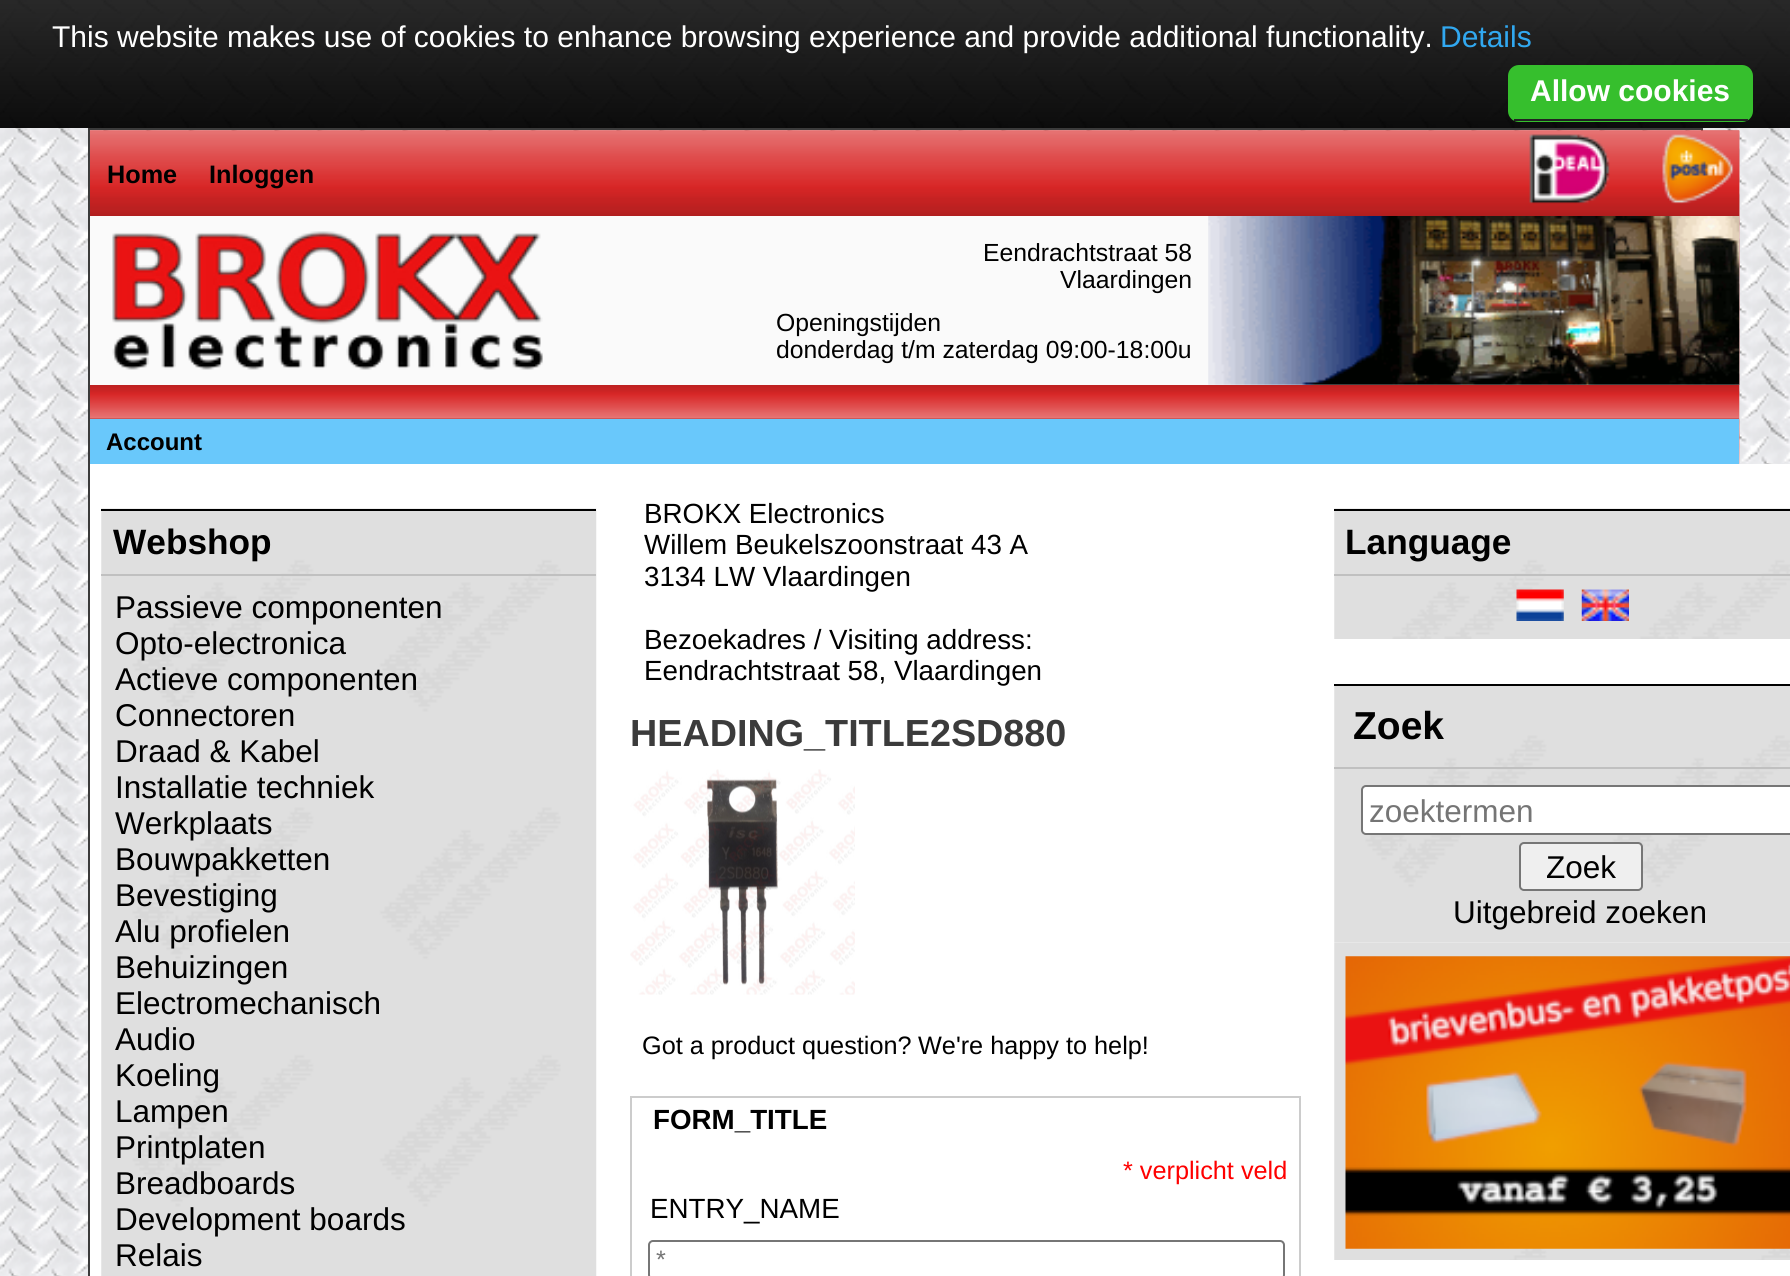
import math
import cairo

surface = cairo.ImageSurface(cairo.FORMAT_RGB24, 1790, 1276)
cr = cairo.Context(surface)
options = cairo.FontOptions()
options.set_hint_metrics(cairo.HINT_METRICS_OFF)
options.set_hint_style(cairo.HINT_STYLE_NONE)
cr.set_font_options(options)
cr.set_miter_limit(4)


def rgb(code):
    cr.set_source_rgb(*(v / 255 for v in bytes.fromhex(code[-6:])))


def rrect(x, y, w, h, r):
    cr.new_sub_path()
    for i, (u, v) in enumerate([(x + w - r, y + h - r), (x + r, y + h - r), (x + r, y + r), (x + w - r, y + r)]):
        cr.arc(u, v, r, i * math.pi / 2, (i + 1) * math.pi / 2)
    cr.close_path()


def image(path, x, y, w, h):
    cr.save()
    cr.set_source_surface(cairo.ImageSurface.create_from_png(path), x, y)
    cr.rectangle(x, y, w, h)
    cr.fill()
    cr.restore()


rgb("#ffffff")
cr.paint()
image("img/1.png", 0, 0, 1790, 1276)
rgb("#36bf2d")
rrect(1508, 65, 245, 57, 11)
cr.fill()
rgb("#222222")
cr.rectangle(1514, 119, 234, 2)
cr.fill()
cr.rectangle(89, 129, 1613, 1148)
rgb("#3b3b3b")
cr.stroke()
image("img/2.png", 90, 130, 1650, 334)
image("img/3.png", 90, 130, 1650, 86)
image("img/4.png", 1529, 134, 205, 70)
rgb("#fafafa")
cr.rectangle(90, 216, 1649, 169)
cr.fill()
image("img/5.png", 112, 231, 431, 139)
image("img/6.png", 1208, 216, 532, 169)
rgb("#69c8fb")
cr.rectangle(90, 419, 1649, 45)
cr.fill()
rgb("#ffffff")
cr.rectangle(90, 464, 1700, 812)
cr.fill()
image("img/7.png", 101, 508, 496, 768)
rgb("#000000")
cr.rectangle(101, 509, 495, 2)
cr.fill()
rgb("#c0c0c0")
cr.rectangle(101, 574, 495, 2)
cr.fill()
image("img/8.png", 630, 769, 225, 226)
cr.rectangle(631, 1097, 669, 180)
rgb("#cccccc")
cr.stroke()
rrect(649, 1241, 635, 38, 4)
rgb("#767676")
cr.stroke()
image("img/9.png", 1334, 508, 456, 131)
rgb("#000000")
cr.rectangle(1334, 509, 456, 2)
cr.fill()
rgb("#c0c0c0")
cr.rectangle(1334, 574, 456, 2)
cr.fill()
image("img/10.png", 1516, 589, 48, 32)
image("img/11.png", 1581, 589, 48, 32)
image("img/12.png", 1334, 686, 456, 257)
rgb("#000000")
cr.rectangle(1334, 684, 456, 2)
cr.fill()
rgb("#c0c0c0")
cr.rectangle(1334, 767, 456, 2)
cr.fill()
rgb("#ffffff")
rrect(1362, 786, 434, 48, 4)
cr.fill_preserve()
rgb("#767676")
cr.stroke()
rgb("#efefef")
rrect(1520, 843, 122, 47, 4)
cr.fill_preserve()
rgb("#767676")
cr.stroke()
image("img/13.png", 1334, 943, 456, 317)
image("img/14.png", 1345, 956, 445, 293)
cr.select_font_face("Liberation Sans")
cr.set_font_size(30)
rgb("#ffffff")
cr.move_to(52, 47)
cr.show_text("This website makes use of cookies to enhance browsing experience and provide additional functionality.")
rgb("#31a8f0")
cr.move_to(1440, 47)
cr.show_text("Details")
cr.select_font_face("Liberation Sans", cairo.FONT_SLANT_NORMAL, cairo.FONT_WEIGHT_BOLD)
rgb("#ffffff")
cr.move_to(1530, 101)
cr.show_text("Allow cookies")
cr.set_font_size(25.25)
rgb("#000000")
cr.move_to(107, 183)
cr.show_text("Home")
cr.move_to(209, 183)
cr.show_text("Inloggen")
cr.select_font_face("Liberation Sans")
cr.set_font_size(24.75)
for x, y, s in [
    (983, 261, "Eendrachtstraat 58"),
    (1060, 288, "Vlaardingen"),
    (776, 331, "Openingstijden"),
    (776, 358, "donderdag t/m zaterdag 09:00-18:00u"),
]:
    cr.move_to(x, y)
    cr.show_text(s)
cr.select_font_face("Liberation Sans", cairo.FONT_SLANT_NORMAL, cairo.FONT_WEIGHT_BOLD)
cr.set_font_size(24)
cr.move_to(106, 450)
cr.show_text("Account")
cr.set_font_size(35.25)
cr.move_to(113, 554)
cr.show_text("Webshop")
cr.select_font_face("Liberation Sans")
cr.set_font_size(31.5)
for x, y, s in [
    (115, 618, "Passieve componenten"),
    (115, 654, "Opto-electronica"),
    (115, 690, "Actieve componenten"),
    (115, 726, "Connectoren"),
    (115, 762, "Draad & Kabel"),
    (115, 798, "Installatie techniek"),
    (115, 834, "Werkplaats"),
    (115, 870, "Bouwpakketten"),
    (115, 906, "Bevestiging"),
    (115, 942, "Alu profielen"),
    (115, 978, "Behuizingen"),
    (115, 1014, "Electromechanisch"),
    (115, 1050, "Audio"),
    (115, 1086, "Koeling"),
    (115, 1122, "Lampen"),
    (115, 1158, "Printplaten"),
    (115, 1194, "Breadboards"),
    (115, 1230, "Development boards"),
    (115, 1266, "Relais"),
]:
    cr.move_to(x, y)
    cr.show_text(s)
cr.set_font_size(27.75)
for x, y, s in [
    (644, 523, "BROKX Electronics"),
    (644, 554, "Willem Beukelszoonstraat 43 A"),
    (644, 586, "3134 LW Vlaardingen"),
    (644, 649, "Bezoekadres / Visiting address:"),
    (644, 680, "Eendrachtstraat 58, Vlaardingen"),
]:
    cr.move_to(x, y)
    cr.show_text(s)
cr.select_font_face("Liberation Sans", cairo.FONT_SLANT_NORMAL, cairo.FONT_WEIGHT_BOLD)
cr.set_font_size(37.75)
rgb("#3b3b3b")
cr.move_to(630, 746)
cr.show_text("HEADING_TITLE2SD880")
cr.select_font_face("Liberation Sans")
cr.set_font_size(25.25)
rgb("#000000")
cr.move_to(642, 1054)
cr.show_text("Got a product question?")
cr.move_to(918, 1054)
cr.show_text("We're happy to help!")
cr.select_font_face("Liberation Sans", cairo.FONT_SLANT_NORMAL, cairo.FONT_WEIGHT_BOLD)
cr.set_font_size(27.75)
cr.move_to(653, 1129)
cr.show_text("FORM_TITLE")
cr.select_font_face("Liberation Sans")
cr.set_font_size(25.25)
rgb("#ff0000")
cr.move_to(1123, 1179)
cr.show_text("* verplicht veld")
cr.set_font_size(27.75)
rgb("#000000")
cr.move_to(650, 1218)
cr.show_text("ENTRY_NAME")
cr.set_font_size(25.25)
rgb("#757575")
cr.move_to(656, 1268)
cr.show_text("*")
cr.select_font_face("Liberation Sans", cairo.FONT_SLANT_NORMAL, cairo.FONT_WEIGHT_BOLD)
cr.set_font_size(35.25)
rgb("#000000")
cr.move_to(1345, 554)
cr.show_text("Language")
cr.set_font_size(39)
cr.move_to(1353, 739)
cr.show_text("Zoek")
cr.select_font_face("Liberation Sans")
cr.set_font_size(31.5)
rgb("#757575")
cr.move_to(1369, 822)
cr.show_text("zoektermen")
rgb("#000000")
cr.move_to(1546, 878)
cr.show_text("Zoek")
cr.move_to(1453, 923)
cr.show_text("Uitgebreid zoeken")
surface.write_to_png("page.png")
